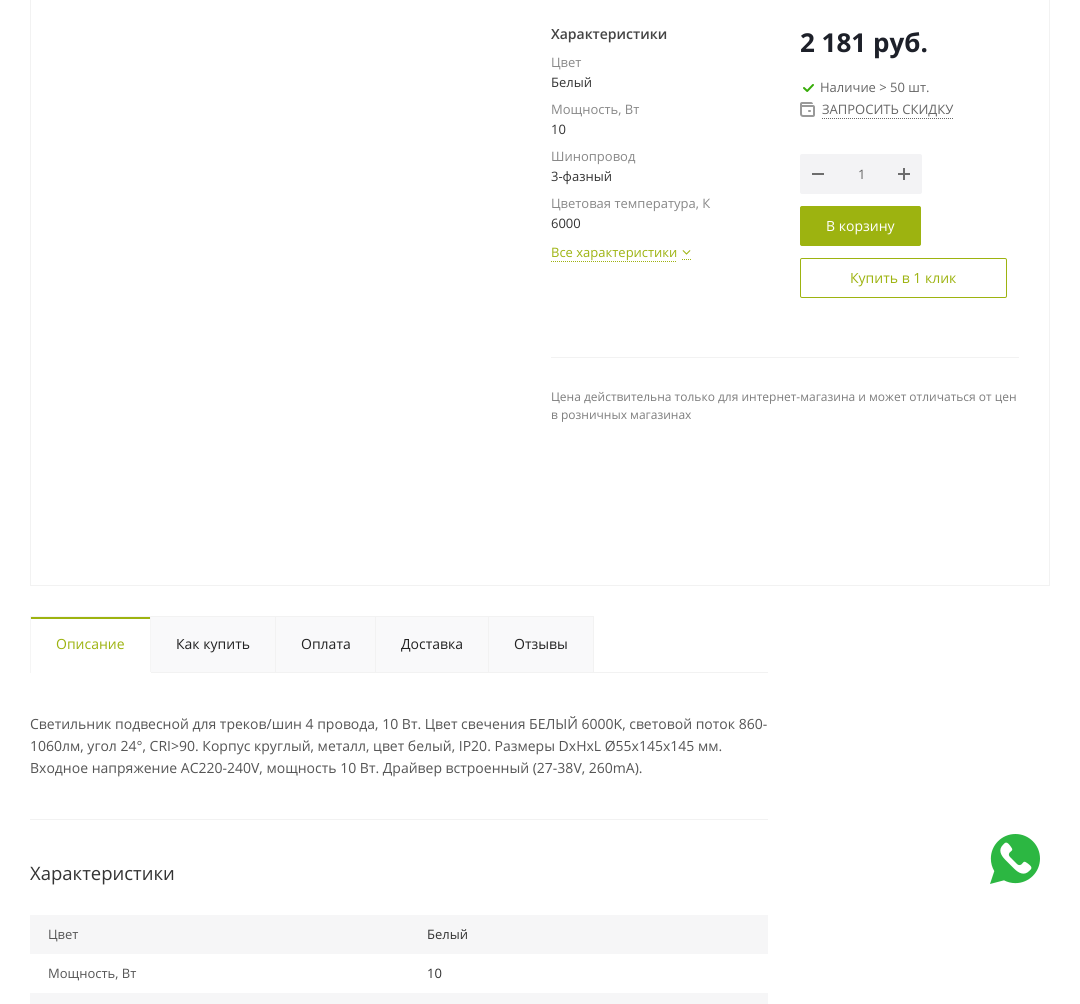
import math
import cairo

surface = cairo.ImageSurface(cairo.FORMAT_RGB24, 1080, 1004)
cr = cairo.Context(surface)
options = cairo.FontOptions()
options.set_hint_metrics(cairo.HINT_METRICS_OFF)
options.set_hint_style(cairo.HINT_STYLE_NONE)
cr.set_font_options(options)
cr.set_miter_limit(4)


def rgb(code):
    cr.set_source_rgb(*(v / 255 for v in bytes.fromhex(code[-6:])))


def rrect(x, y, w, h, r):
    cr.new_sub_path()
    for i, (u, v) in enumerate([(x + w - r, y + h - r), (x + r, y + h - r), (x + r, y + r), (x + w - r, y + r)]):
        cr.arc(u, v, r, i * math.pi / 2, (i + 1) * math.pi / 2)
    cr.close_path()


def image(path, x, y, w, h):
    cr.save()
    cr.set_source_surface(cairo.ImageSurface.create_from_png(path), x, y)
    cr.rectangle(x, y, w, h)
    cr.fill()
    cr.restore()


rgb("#ffffff")
cr.paint()
cr.rectangle(30.5, -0.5, 1019, 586)
rgb("#f2f2f2")
cr.set_line_width(1)
cr.stroke()
cr.new_path()
cr.move_to(682, 259.5)
cr.line_to(691, 259.5)
rgb("#9db310")
cr.set_dash([1, 1])
cr.stroke()
cr.new_path()
cr.move_to(551, 261.5)
cr.line_to(677, 261.5)
cr.stroke()
image("img/1.png", 682, 250, 9, 5)
image("img/2.png", 803, 84, 11, 8)
image("img/3.png", 800, 102, 15, 15)
cr.new_path()
cr.move_to(822, 118.5)
cr.line_to(953, 118.5)
rgb("#666666")
cr.stroke()
rgb("#f3f3f5")
rrect(800, 154, 122, 40, 2)
cr.fill()
rgb("#6d6d6d")
cr.rectangle(812, 173, 12, 2)
cr.fill()
image("img/4.png", 898, 168, 12, 12)
rgb("#9db310")
rrect(800.5, 206.5, 120, 39, 1.5)
cr.fill_preserve()
cr.set_dash([])
cr.stroke()
rrect(800.5, 258.5, 206, 39, 1.5)
cr.stroke()
rgb("#f2f2f2")
cr.rectangle(551, 357, 468, 1)
cr.fill()
cr.rectangle(594, 672, 174, 1)
cr.fill()
rgb("#f9f9fa")
cr.rectangle(150.5, 616.5, 125, 56)
cr.fill_preserve()
rgb("#f2f2f2")
cr.stroke()
for x, y, w, h, color in [
    (30, 616, 121, 1, "#f5f5f5"),
    (150, 616, 1, 57, "#f5f5f5"),
    (150, 672, 1, 1, "#ffffff"),
    (30, 616, 1, 57, "#f5f5f5"),
    (31, 617, 119, 2, "#9db310"),
]:
    rgb(color)
    cr.rectangle(x, y, w, h)
    cr.fill()
rgb("#f9f9fa")
cr.rectangle(275.5, 616.5, 100, 56)
cr.fill_preserve()
rgb("#f2f2f2")
cr.stroke()
rgb("#f9f9fa")
cr.rectangle(375.5, 616.5, 113, 56)
cr.fill_preserve()
rgb("#f2f2f2")
cr.stroke()
rgb("#f9f9fa")
cr.rectangle(488.5, 616.5, 105, 56)
cr.fill_preserve()
rgb("#f2f2f2")
cr.stroke()
for x, y, w, h, color in [
    (30, 819, 738, 1, "#f2f2f2"),
    (30, 915, 738, 39, "#f6f6f7"),
    (30, 993, 738, 11, "#f6f6f7"),
]:
    rgb(color)
    cr.rectangle(x, y, w, h)
    cr.fill()
image("img/5.png", 990, 834, 50, 50)
cr.select_font_face("Open Sans SemiBold")
cr.set_font_size(14)
rgb("#444444")
cr.move_to(551, 39)
cr.show_text("Характеристики")
cr.select_font_face("Open Sans")
cr.set_font_size(13)
rgb("#888888")
cr.move_to(551, 67)
cr.show_text("Цвет")
rgb("#333333")
cr.move_to(551, 87)
cr.show_text("Белый")
rgb("#888888")
cr.move_to(551, 114)
cr.show_text("Мощность, Вт")
rgb("#333333")
cr.move_to(551, 134)
cr.show_text("10")
rgb("#888888")
cr.move_to(551, 161)
cr.show_text("Шинопровод")
rgb("#333333")
cr.move_to(551, 181)
cr.show_text("3-фазный")
rgb("#888888")
cr.move_to(551, 208)
cr.show_text("Цветовая температура, К")
rgb("#333333")
cr.move_to(551, 228)
cr.show_text("6000")
rgb("#9db310")
cr.move_to(551, 257)
cr.show_text("Все характеристики")
cr.select_font_face("Open Sans", cairo.FONT_SLANT_NORMAL, cairo.FONT_WEIGHT_BOLD)
cr.set_font_size(26)
rgb("#1d2029")
cr.move_to(800, 52)
cr.show_text("2 181 руб.")
cr.select_font_face("Open Sans")
cr.set_font_size(13)
rgb("#666666")
for x, y, s in [
    (820, 92, "Наличие > 50 шт."),
    (822, 114, "ЗАПРОСИТЬ СКИДКУ"),
    (858, 179, "1"),
]:
    cr.move_to(x, y)
    cr.show_text(s)
cr.set_font_size(14)
rgb("#ffffff")
cr.move_to(826, 231)
cr.show_text("В корзину")
rgb("#9db310")
cr.move_to(850, 283)
cr.show_text("Купить в 1 клик")
cr.set_font_size(12)
rgb("#7d7d7d")
cr.move_to(551, 401)
cr.show_text("Цена действительна только для интернет-магазина и может отличаться от цен")
cr.move_to(551, 419)
cr.show_text("в розничных магазинах")
cr.set_font_size(14)
rgb("#9db310")
cr.move_to(56, 649)
cr.show_text("Описание")
rgb("#222222")
for x, y, s in [
    (176, 649, "Как купить"),
    (301, 649, "Оплата"),
    (401, 649, "Доставка"),
    (514, 649, "Отзывы"),
]:
    cr.move_to(x, y)
    cr.show_text(s)
rgb("#555555")
for x, y, s in [
    (30, 729, "Светильник подвесной для треков/шин 4 провода, 10 Вт. Цвет свечения БЕЛЫЙ 6000K, световой поток 860-"),
    (30, 751, "1060лм, угол 24°, CRI>90. Корпус круглый, металл, цвет белый, IP20. Размеры DxHxL Ø55x145x145 мм."),
    (30, 773, "Входное напряжение AC220-240V, мощность 10 Вт. Драйвер встроенный (27-38V, 260mA)."),
]:
    cr.move_to(x, y)
    cr.show_text(s)
cr.set_font_size(18.5)
rgb("#333333")
cr.move_to(30, 880)
cr.show_text("Характеристики")
cr.set_font_size(13)
rgb("#555555")
cr.move_to(48, 939)
cr.show_text("Цвет")
rgb("#333333")
cr.move_to(427, 939)
cr.show_text("Белый")
rgb("#555555")
cr.move_to(48, 978)
cr.show_text("Мощность, Вт")
rgb("#333333")
cr.move_to(427, 978)
cr.show_text("10")
surface.write_to_png("page.png")
